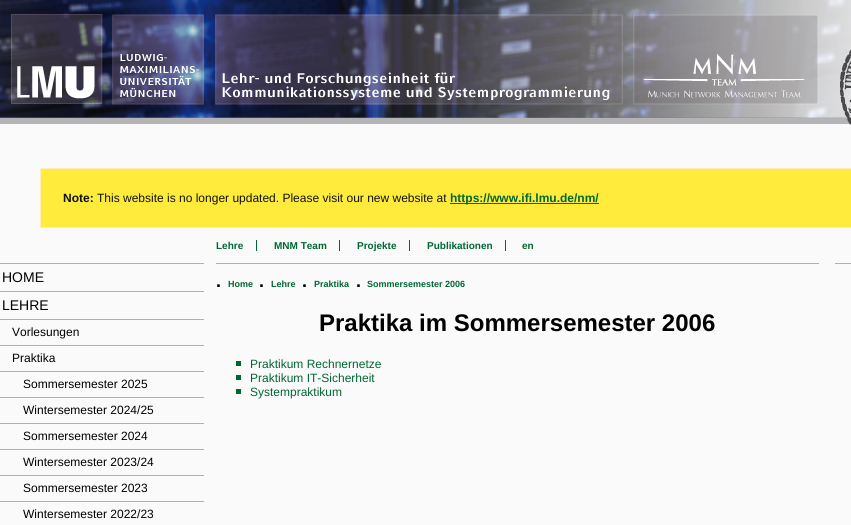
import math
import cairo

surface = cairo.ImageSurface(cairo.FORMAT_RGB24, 851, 525)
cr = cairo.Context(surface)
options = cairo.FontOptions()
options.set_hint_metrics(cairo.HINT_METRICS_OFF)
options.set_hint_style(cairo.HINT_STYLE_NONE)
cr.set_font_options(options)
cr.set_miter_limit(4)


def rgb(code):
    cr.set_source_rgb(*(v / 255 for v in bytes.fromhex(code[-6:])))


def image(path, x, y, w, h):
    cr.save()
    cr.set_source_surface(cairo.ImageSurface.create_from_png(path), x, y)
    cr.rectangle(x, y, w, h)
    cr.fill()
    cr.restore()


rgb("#fafafa")
cr.paint()
image("img/1.png", 0, 0, 851, 125)
rgb("#ffeb3b")
cr.rectangle(40.5, 168.5, 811, 59)
cr.fill_preserve()
rgb("#ffeeba")
cr.set_line_width(1)
cr.stroke()
for x, y, w, h, color in [
    (450, 203, 149, 1, "#006633"),
    (216, 263, 603, 1, "#afafaf"),
    (256, 240, 1, 11, "#006633"),
    (339, 240, 1, 11, "#006633"),
    (409, 240, 1, 11, "#006633"),
    (505, 240, 1, 11, "#006633"),
    (236, 361, 5, 5, "#006633"),
    (236, 375, 5, 5, "#006633"),
    (236, 389, 5, 5, "#006633"),
    (835, 263, 16, 1, "#afafaf"),
    (0, 263, 204, 1, "#afafaf"),
    (0, 291, 204, 1, "#afafaf"),
    (0, 319, 204, 1, "#afafaf"),
    (0, 345, 204, 1, "#afafaf"),
    (0, 371, 204, 1, "#afafaf"),
    (0, 397, 204, 1, "#afafaf"),
    (0, 423, 204, 1, "#afafaf"),
    (0, 449, 204, 1, "#afafaf"),
    (0, 475, 204, 1, "#afafaf"),
    (0, 501, 204, 1, "#afafaf"),
]:
    rgb(color)
    cr.rectangle(x, y, w, h)
    cr.fill()
cr.select_font_face("Liberation Sans", cairo.FONT_SLANT_NORMAL, cairo.FONT_WEIGHT_BOLD)
cr.set_font_size(12)
rgb("#111111")
cr.move_to(63, 202)
cr.show_text("Note:")
cr.select_font_face("Liberation Sans")
cr.move_to(97, 202)
cr.show_text("This website is no longer updated. Please visit our new website at")
cr.select_font_face("Liberation Sans", cairo.FONT_SLANT_NORMAL, cairo.FONT_WEIGHT_BOLD)
rgb("#006633")
cr.move_to(450, 202)
cr.show_text("https://www.ifi.lmu.de/nm/")
cr.set_font_size(10)
for x, y, s in [
    (216, 249, "Lehre"),
    (274, 249, "MNM Team"),
    (357, 249, "Projekte"),
    (427, 249, "Publikationen"),
    (522, 249, "en"),
]:
    cr.move_to(x, y)
    cr.show_text(s)
cr.set_font_size(18)
rgb("#000000")
cr.move_to(216, 287)
cr.show_text(".")
cr.set_font_size(9)
rgb("#006633")
cr.move_to(228, 287)
cr.show_text("Home")
cr.set_font_size(18)
rgb("#000000")
cr.move_to(259, 287)
cr.show_text(".")
cr.set_font_size(9)
rgb("#006633")
cr.move_to(271, 287)
cr.show_text("Lehre")
cr.set_font_size(18)
rgb("#000000")
cr.move_to(302, 287)
cr.show_text(".")
cr.set_font_size(9)
rgb("#006633")
cr.move_to(314, 287)
cr.show_text("Praktika")
cr.set_font_size(18)
rgb("#000000")
cr.move_to(356, 287)
cr.show_text(".")
cr.set_font_size(9)
rgb("#006633")
cr.move_to(367, 287)
cr.show_text("Sommersemester 2006")
cr.set_font_size(24)
rgb("#000000")
cr.move_to(319, 331)
cr.show_text("Praktika im Sommersemester 2006")
cr.select_font_face("Liberation Sans")
cr.set_font_size(12)
rgb("#006633")
for x, y, s in [
    (250, 368, "Praktikum Rechnernetze"),
    (250, 382, "Praktikum IT-Sicherheit"),
    (250, 396, "Systempraktikum"),
]:
    cr.move_to(x, y)
    cr.show_text(s)
cr.set_font_size(14)
rgb("#000000")
cr.move_to(2, 282)
cr.show_text("HOME")
cr.move_to(2, 310)
cr.show_text("LEHRE")
cr.set_font_size(12)
for x, y, s in [
    (12, 336, "Vorlesungen"),
    (12, 362, "Praktika"),
    (23, 388, "Sommersemester 2025"),
    (23, 414, "Wintersemester 2024/25"),
    (23, 440, "Sommersemester 2024"),
    (23, 466, "Wintersemester 2023/24"),
    (23, 492, "Sommersemester 2023"),
    (23, 518, "Wintersemester 2022/23"),
]:
    cr.move_to(x, y)
    cr.show_text(s)
surface.write_to_png("page.png")
